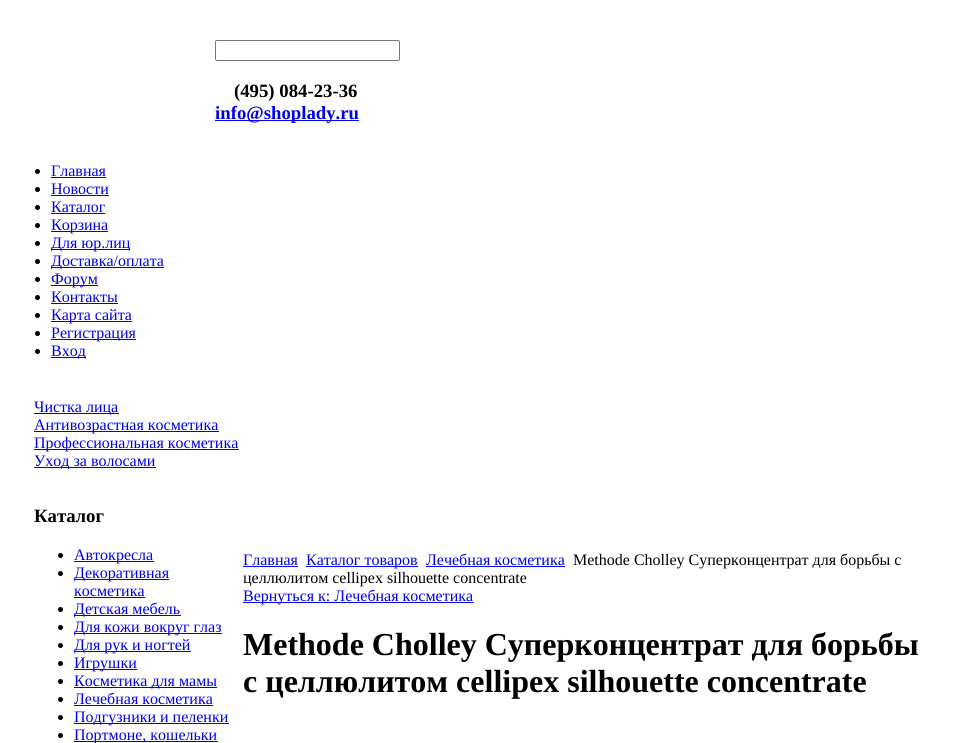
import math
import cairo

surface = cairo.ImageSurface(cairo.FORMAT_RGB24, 954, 743)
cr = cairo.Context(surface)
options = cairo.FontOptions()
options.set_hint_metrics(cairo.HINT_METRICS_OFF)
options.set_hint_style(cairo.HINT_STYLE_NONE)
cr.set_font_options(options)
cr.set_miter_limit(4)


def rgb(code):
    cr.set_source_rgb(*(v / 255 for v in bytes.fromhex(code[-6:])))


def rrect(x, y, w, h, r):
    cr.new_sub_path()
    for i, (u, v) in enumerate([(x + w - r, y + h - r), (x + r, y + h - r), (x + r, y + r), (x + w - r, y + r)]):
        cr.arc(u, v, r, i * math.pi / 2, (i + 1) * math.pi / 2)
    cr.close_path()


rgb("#ffffff")
cr.paint()
rrect(215.5, 40.5, 184, 20, 1.5)
rgb("#767676")
cr.set_line_width(1)
cr.stroke()
rgb("#0000ee")
cr.rectangle(215, 120, 144, 1)
cr.fill()
rgb("#000000")
cr.arc(37.5, 171.5, 2.5, 0, 2 * math.pi)
cr.fill()
rgb("#0000ee")
cr.rectangle(51, 177, 55, 1)
cr.fill()
rgb("#000000")
cr.arc(37.5, 189.5, 2.5, 0, 2 * math.pi)
cr.fill()
rgb("#0000ee")
cr.rectangle(51, 195, 58, 1)
cr.fill()
rgb("#000000")
cr.arc(37.5, 207.5, 2.5, 0, 2 * math.pi)
cr.fill()
rgb("#0000ee")
cr.rectangle(51, 213, 54, 1)
cr.fill()
rgb("#000000")
cr.arc(37.5, 225.5, 2.5, 0, 2 * math.pi)
cr.fill()
rgb("#0000ee")
cr.rectangle(51, 231, 57, 1)
cr.fill()
rgb("#000000")
cr.arc(37.5, 243.5, 2.5, 0, 2 * math.pi)
cr.fill()
rgb("#0000ee")
cr.rectangle(51, 249, 79, 1)
cr.fill()
rgb("#000000")
cr.arc(37.5, 261.5, 2.5, 0, 2 * math.pi)
cr.fill()
rgb("#0000ee")
cr.rectangle(51, 267, 113, 1)
cr.fill()
rgb("#000000")
cr.arc(37.5, 279.5, 2.5, 0, 2 * math.pi)
cr.fill()
rgb("#0000ee")
cr.rectangle(51, 285, 47, 1)
cr.fill()
rgb("#000000")
cr.arc(37.5, 297.5, 2.5, 0, 2 * math.pi)
cr.fill()
rgb("#0000ee")
cr.rectangle(51, 303, 67, 1)
cr.fill()
rgb("#000000")
cr.arc(37.5, 315.5, 2.5, 0, 2 * math.pi)
cr.fill()
rgb("#0000ee")
cr.rectangle(51, 321, 81, 1)
cr.fill()
rgb("#000000")
cr.arc(37.5, 333.5, 2.5, 0, 2 * math.pi)
cr.fill()
rgb("#0000ee")
cr.rectangle(51, 339, 85, 1)
cr.fill()
rgb("#000000")
cr.arc(37.5, 351.5, 2.5, 0, 2 * math.pi)
cr.fill()
for x, y, w, h, color in [
    (51, 357, 35, 1, "#0000ee"),
    (34, 413, 85, 1, "#0000ee"),
    (34, 431, 185, 1, "#0000ee"),
    (34, 449, 205, 1, "#0000ee"),
    (34, 467, 122, 1, "#0000ee"),
]:
    rgb(color)
    cr.rectangle(x, y, w, h)
    cr.fill()
rgb("#000000")
cr.arc(60.5, 555.5, 2.5, 0, 2 * math.pi)
cr.fill()
rgb("#0000ee")
cr.rectangle(74, 561, 80, 1)
cr.fill()
rgb("#000000")
cr.arc(60.5, 573.5, 2.5, 0, 2 * math.pi)
cr.fill()
rgb("#0000ee")
cr.rectangle(74, 579, 95, 1)
cr.fill()
cr.rectangle(74, 597, 71, 1)
cr.fill()
rgb("#000000")
cr.arc(60.5, 609.5, 2.5, 0, 2 * math.pi)
cr.fill()
rgb("#0000ee")
cr.rectangle(74, 615, 107, 1)
cr.fill()
rgb("#000000")
cr.arc(60.5, 627.5, 2.5, 0, 2 * math.pi)
cr.fill()
rgb("#0000ee")
cr.rectangle(74, 633, 148, 1)
cr.fill()
rgb("#000000")
cr.arc(60.5, 645.5, 2.5, 0, 2 * math.pi)
cr.fill()
rgb("#0000ee")
cr.rectangle(74, 651, 117, 1)
cr.fill()
rgb("#000000")
cr.arc(60.5, 663.5, 2.5, 0, 2 * math.pi)
cr.fill()
rgb("#0000ee")
cr.rectangle(74, 669, 63, 1)
cr.fill()
rgb("#000000")
cr.arc(60.5, 681.5, 2.5, 0, 2 * math.pi)
cr.fill()
rgb("#0000ee")
cr.rectangle(74, 687, 143, 1)
cr.fill()
rgb("#000000")
cr.arc(60.5, 699.5, 2.5, 0, 2 * math.pi)
cr.fill()
rgb("#0000ee")
cr.rectangle(74, 705, 139, 1)
cr.fill()
rgb("#000000")
cr.arc(60.5, 717.5, 2.5, 0, 2 * math.pi)
cr.fill()
rgb("#0000ee")
cr.rectangle(74, 723, 155, 1)
cr.fill()
rgb("#000000")
cr.arc(60.5, 735.5, 2.5, 0, 2 * math.pi)
cr.fill()
for x, y, w, h, color in [
    (74, 741, 144, 1, "#0000ee"),
    (243, 566, 55, 1, "#0000ee"),
    (306, 566, 112, 1, "#0000ee"),
    (426, 566, 139, 1, "#0000ee"),
    (243, 602, 231, 1, "#0000ee"),
]:
    rgb(color)
    cr.rectangle(x, y, w, h)
    cr.fill()
cr.select_font_face("Liberation Serif", cairo.FONT_SLANT_NORMAL, cairo.FONT_WEIGHT_BOLD)
cr.set_font_size(18.75)
rgb("#000000")
cr.move_to(234, 97)
cr.show_text("(495) 084-23-36")
rgb("#0000ee")
cr.move_to(215, 119)
cr.show_text("info@shoplady.ru")
cr.select_font_face("Liberation Serif")
cr.set_font_size(16)
for x, y, s in [
    (51, 176, "Главная"),
    (51, 194, "Новости"),
    (51, 212, "Каталог"),
    (51, 230, "Корзина"),
    (51, 248, "Для юр.лиц"),
    (51, 266, "Доставка/оплата"),
    (51, 284, "Форум"),
    (51, 302, "Контакты"),
    (51, 320, "Карта сайта"),
    (51, 338, "Регистрация"),
    (51, 356, "Вход"),
    (34, 412, "Чистка лица"),
    (34, 430, "Антивозрастная косметика"),
    (34, 448, "Профессиональная косметика"),
    (34, 466, "Уход за волосами"),
]:
    cr.move_to(x, y)
    cr.show_text(s)
cr.select_font_face("Liberation Serif", cairo.FONT_SLANT_NORMAL, cairo.FONT_WEIGHT_BOLD)
cr.set_font_size(18.75)
rgb("#000000")
cr.move_to(34, 522)
cr.show_text("Каталог")
cr.select_font_face("Liberation Serif")
cr.set_font_size(16)
rgb("#0000ee")
for x, y, s in [
    (74, 560, "Автокресла"),
    (74, 578, "Декоративная"),
    (74, 596, "косметика"),
    (74, 614, "Детская мебель"),
    (74, 632, "Для кожи вокруг глаз"),
    (74, 650, "Для рук и ногтей"),
    (74, 668, "Игрушки"),
    (74, 686, "Косметика для мамы"),
    (74, 704, "Лечебная косметика"),
    (74, 722, "Подгузники и пеленки"),
    (74, 740, "Портмоне, кошельки"),
    (243, 565, "Главная"),
    (306, 565, "Каталог товаров"),
    (426, 565, "Лечебная косметика"),
]:
    cr.move_to(x, y)
    cr.show_text(s)
rgb("#000000")
cr.move_to(573, 565)
cr.show_text("Methode Cholley Суперконцентрат для борьбы с")
cr.move_to(243, 583)
cr.show_text("целлюлитом cellipex silhouette concentrate")
rgb("#0000ee")
cr.move_to(243, 601)
cr.show_text("Вернуться к: Лечебная косметика")
cr.select_font_face("Liberation Serif", cairo.FONT_SLANT_NORMAL, cairo.FONT_WEIGHT_BOLD)
cr.set_font_size(32)
rgb("#000000")
cr.move_to(243, 655)
cr.show_text("Methode Cholley Суперконцентрат для борьбы")
cr.move_to(243, 692)
cr.show_text("с целлюлитом cellipex silhouette concentrate")
surface.write_to_png("page.png")
